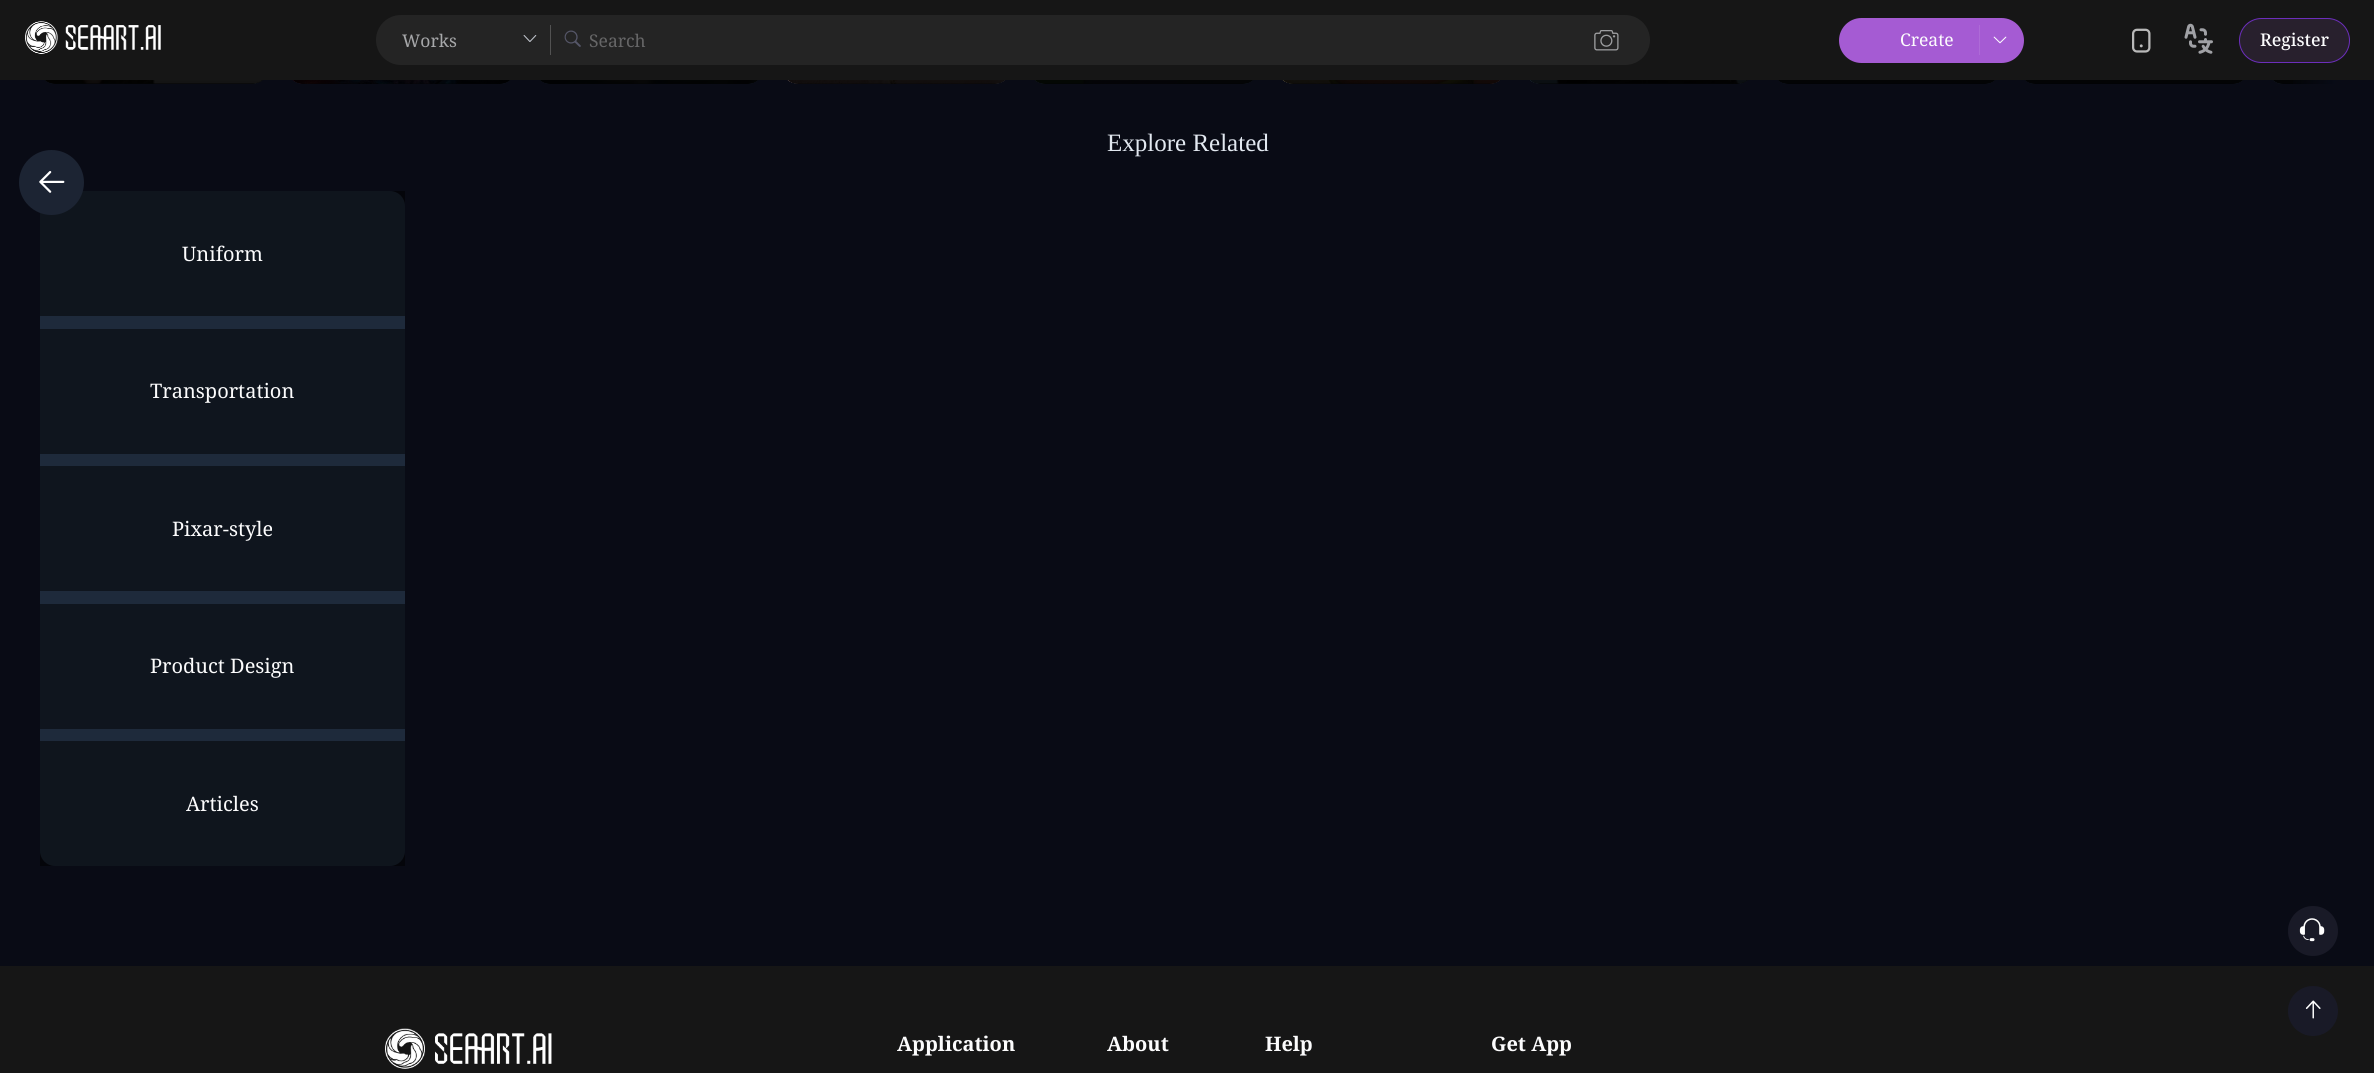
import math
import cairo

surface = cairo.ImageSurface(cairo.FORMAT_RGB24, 2374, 1073)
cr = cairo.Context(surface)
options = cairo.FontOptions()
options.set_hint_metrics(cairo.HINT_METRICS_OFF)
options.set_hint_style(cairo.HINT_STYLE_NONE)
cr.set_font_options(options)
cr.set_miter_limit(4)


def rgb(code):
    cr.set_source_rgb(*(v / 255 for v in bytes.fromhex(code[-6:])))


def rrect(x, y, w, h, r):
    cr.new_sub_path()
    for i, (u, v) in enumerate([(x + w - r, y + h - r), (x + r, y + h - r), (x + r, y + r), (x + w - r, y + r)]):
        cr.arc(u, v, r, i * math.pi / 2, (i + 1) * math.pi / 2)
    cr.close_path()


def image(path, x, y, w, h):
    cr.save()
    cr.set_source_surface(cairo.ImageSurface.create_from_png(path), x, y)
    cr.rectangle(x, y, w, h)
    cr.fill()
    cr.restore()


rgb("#161616")
cr.paint()
rgb("#090b15")
cr.rectangle(0, 80, 2374, 886)
cr.fill()
rgb("#1e2a3b")
rrect(40, -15, 228, 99, 15)
cr.fill()
image("img/9.png", 45, 80, 218, 4)
gradient = cairo.LinearGradient(154, -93, 154, 84)
gradient.add_color_stop_rgba(0, 0, 0, 0, 0)
gradient.add_color_stop_rgba(0.5, 0, 0, 0, 0.65)
gradient.add_color_stop_rgba(1, 0, 0, 0, 0.92)
cr.set_source(gradient)
cr.new_path()
cr.move_to(40, -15)
cr.line_to(268, -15)
cr.line_to(268, 69)
cr.curve_to(268, 77.5, 261.5, 84, 253, 84)
cr.line_to(55, 84)
cr.curve_to(46.5, 84, 40, 77.5, 40, 69)
cr.close_path()
cr.fill()
rgb("#1e2a3b")
rrect(288, -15, 227, 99, 15)
cr.fill()
image("img/10.png", 292, 80, 218, 4)
gradient = cairo.LinearGradient(401, -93, 401, 84)
gradient.add_color_stop_rgba(0, 0, 0, 0, 0)
gradient.add_color_stop_rgba(0.5, 0, 0, 0, 0.65)
gradient.add_color_stop_rgba(1, 0, 0, 0, 0.92)
cr.set_source(gradient)
cr.new_path()
cr.move_to(288, -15)
cr.line_to(515, -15)
cr.line_to(515, 69)
cr.curve_to(515, 77.5, 508.5, 84, 500, 84)
cr.line_to(303, 84)
cr.curve_to(294.5, 84, 288, 77.5, 288, 69)
cr.close_path()
cr.fill()
rgb("#1e2a3b")
rrect(535, -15, 228, 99, 15)
cr.fill()
image("img/11.png", 540, 80, 218, 4)
gradient = cairo.LinearGradient(649, -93, 649, 84)
gradient.add_color_stop_rgba(0, 0, 0, 0, 0)
gradient.add_color_stop_rgba(0.5, 0, 0, 0, 0.65)
gradient.add_color_stop_rgba(1, 0, 0, 0, 0.92)
cr.set_source(gradient)
cr.new_path()
cr.move_to(535, -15)
cr.line_to(763, -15)
cr.line_to(763, 69)
cr.curve_to(763, 77.5, 756.5, 84, 748, 84)
cr.line_to(550, 84)
cr.curve_to(541.5, 84, 535, 77.5, 535, 69)
cr.close_path()
cr.fill()
rgb("#1e2a3b")
rrect(783, -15, 227, 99, 15)
cr.fill()
image("img/12.png", 787, 80, 218, 4)
gradient = cairo.LinearGradient(896, -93, 896, 84)
gradient.add_color_stop_rgba(0, 0, 0, 0, 0)
gradient.add_color_stop_rgba(0.5, 0, 0, 0, 0.65)
gradient.add_color_stop_rgba(1, 0, 0, 0, 0.92)
cr.set_source(gradient)
cr.new_path()
cr.move_to(783, -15)
cr.line_to(1010, -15)
cr.line_to(1010, 69)
cr.curve_to(1010, 77.5, 1003.5, 84, 995, 84)
cr.line_to(798, 84)
cr.curve_to(789.5, 84, 783, 77.5, 783, 69)
cr.close_path()
cr.fill()
rgb("#1e2a3b")
rrect(1030, -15, 228, 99, 15)
cr.fill()
image("img/13.png", 1035, 80, 218, 4)
gradient = cairo.LinearGradient(1144, -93, 1144, 84)
gradient.add_color_stop_rgba(0, 0, 0, 0, 0)
gradient.add_color_stop_rgba(0.5, 0, 0, 0, 0.65)
gradient.add_color_stop_rgba(1, 0, 0, 0, 0.92)
cr.set_source(gradient)
cr.new_path()
cr.move_to(1030, -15)
cr.line_to(1258, -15)
cr.line_to(1258, 69)
cr.curve_to(1258, 77.5, 1251.5, 84, 1243, 84)
cr.line_to(1045, 84)
cr.curve_to(1036.5, 84, 1030, 77.5, 1030, 69)
cr.close_path()
cr.fill()
rgb("#1e2a3b")
rrect(1278, -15, 227, 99, 15)
cr.fill()
image("img/14.png", 1282, 80, 218, 4)
gradient = cairo.LinearGradient(1391, -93, 1391, 84)
gradient.add_color_stop_rgba(0, 0, 0, 0, 0)
gradient.add_color_stop_rgba(0.5, 0, 0, 0, 0.65)
gradient.add_color_stop_rgba(1, 0, 0, 0, 0.92)
cr.set_source(gradient)
cr.new_path()
cr.move_to(1278, -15)
cr.line_to(1505, -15)
cr.line_to(1505, 69)
cr.curve_to(1505, 77.5, 1498.5, 84, 1490, 84)
cr.line_to(1293, 84)
cr.curve_to(1284.5, 84, 1278, 77.5, 1278, 69)
cr.close_path()
cr.fill()
rgb("#1e2a3b")
rrect(1525, -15, 228, 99, 15)
cr.fill()
image("img/15.png", 1530, 80, 218, 4)
gradient = cairo.LinearGradient(1639, -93, 1639, 84)
gradient.add_color_stop_rgba(0, 0, 0, 0, 0)
gradient.add_color_stop_rgba(0.5, 0, 0, 0, 0.65)
gradient.add_color_stop_rgba(1, 0, 0, 0, 0.92)
cr.set_source(gradient)
cr.new_path()
cr.move_to(1525, -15)
cr.line_to(1753, -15)
cr.line_to(1753, 69)
cr.curve_to(1753, 77.5, 1746.5, 84, 1738, 84)
cr.line_to(1540, 84)
cr.curve_to(1531.5, 84, 1525, 77.5, 1525, 69)
cr.close_path()
cr.fill()
rgb("#1e2a3b")
rrect(1773, -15, 227, 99, 15)
cr.fill()
gradient = cairo.LinearGradient(1886, -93, 1886, 84)
gradient.add_color_stop_rgba(0, 0, 0, 0, 0)
gradient.add_color_stop_rgba(0.5, 0, 0, 0, 0.65)
gradient.add_color_stop_rgba(1, 0, 0, 0, 0.92)
cr.set_source(gradient)
cr.new_path()
cr.move_to(1773, -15)
cr.line_to(2000, -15)
cr.line_to(2000, 69)
cr.curve_to(2000, 77.5, 1993.5, 84, 1985, 84)
cr.line_to(1788, 84)
cr.curve_to(1779.5, 84, 1773, 77.5, 1773, 69)
cr.close_path()
cr.fill()
rgb("#1e2a3b")
rrect(2020, -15, 228, 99, 15)
cr.fill()
gradient = cairo.LinearGradient(2134, -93, 2134, 84)
gradient.add_color_stop_rgba(0, 0, 0, 0, 0)
gradient.add_color_stop_rgba(0.5, 0, 0, 0, 0.65)
gradient.add_color_stop_rgba(1, 0, 0, 0, 0.92)
cr.set_source(gradient)
cr.new_path()
cr.move_to(2020, -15)
cr.line_to(2248, -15)
cr.line_to(2248, 69)
cr.curve_to(2248, 77.5, 2241.5, 84, 2233, 84)
cr.line_to(2035, 84)
cr.curve_to(2026.5, 84, 2020, 77.5, 2020, 69)
cr.close_path()
cr.fill()
rgb("#1e2a3b")
cr.new_path()
cr.move_to(2283, -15)
cr.line_to(2335, -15)
cr.line_to(2335, 84)
cr.line_to(2283, 84)
cr.curve_to(2274.5, 84, 2268, 77.5, 2268, 69)
cr.line_to(2268, 0)
cr.curve_to(2268, -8.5, 2274.5, -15, 2283, -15)
cr.close_path()
cr.fill()
gradient = cairo.LinearGradient(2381, -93, 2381, 84)
gradient.add_color_stop_rgba(0, 0, 0, 0, 0)
gradient.add_color_stop_rgba(0.5, 0, 0, 0, 0.65)
gradient.add_color_stop_rgba(1, 0, 0, 0, 0.92)
cr.set_source(gradient)
cr.new_path()
cr.move_to(2268, -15)
cr.line_to(2335, -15)
cr.line_to(2335, 84)
cr.line_to(2283, 84)
cr.curve_to(2274.5, 84, 2268, 77.5, 2268, 69)
cr.close_path()
cr.fill()
rgb("#161616")
cr.rectangle(40, 0, 2295, 80)
cr.fill()
image("img/1.png", 25, 21, 136, 33)
rgb("#242424")
rrect(376, 15, 1274, 50, 25)
cr.fill()
image("img/2.png", 523, 35, 14, 7)
rgb("#525252")
cr.rectangle(550, 25, 1, 30)
cr.fill()
image("img/3.png", 564, 30, 17, 17)
image("img/4.png", 1594, 30, 25, 21)
rgb("#a55bd3")
rrect(1839, 18, 185, 45, 22.5)
cr.fill()
rgb("#ae6bd7")
cr.rectangle(1979, 25, 1, 30)
cr.fill()
image("img/5.png", 1993, 36, 14, 8)
image("img/6.png", 2132, 28, 19, 25)
image("img/7.png", 2184, 23, 29, 31)
rgb("#28202d")
rrect(2239.5, 18.5, 110, 44, 22)
cr.fill_preserve()
rgb("#6c2ebc")
cr.set_line_width(1)
cr.stroke()
rgb("#1e2a3b")
rrect(40, 191, 365, 675, 15)
cr.fill()
cr.set_source_rgba(0, 0, 0, 0.5)
cr.rectangle(40, 191, 365, 125)
cr.fill()
rgb("#1c2433")
cr.arc(51.5, 182.5, 32.5, 0, 2 * math.pi)
cr.fill()
image("img/8.png", 39, 171, 26, 22)
gradient = cairo.LinearGradient(2335, -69, 2285, -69)
gradient.add_color_stop_rgba(0, 0.031, 0.043, 0.086, 1)
gradient.add_color_stop_rgba(1, 0.031, 0.043, 0.086, 0)
cr.set_source(gradient)
cr.rectangle(2293, 80, 42, 4)
cr.fill()
rgb("#0f151e")
cr.rectangle(40, 329, 365, 125)
cr.rectangle(40, 466, 365, 125)
cr.rectangle(40, 604, 365, 125)
cr.fill()
cr.set_source_rgba(0, 0, 0, 0.5)
cr.rectangle(40, 741, 365, 125)
cr.fill()
rgb("#191a27")
cr.arc(2313, 1011, 25, 0, 2 * math.pi)
cr.fill()
image("img/16.png", 2305, 1000, 16, 19)
cr.arc(2313, 931, 25, 0, 2 * math.pi)
cr.fill()
image("img/17.png", 2299, 918, 26, 24)
image("img/18.png", 385, 1028, 167, 41)
cr.select_font_face("Noto Serif")
cr.set_font_size(17.5)
rgb("#a7a8aa")
cr.move_to(402, 47)
cr.show_text("Works")
rgb("#666667")
cr.move_to(589, 47)
cr.show_text("Search")
rgb("#fcfcfd")
cr.move_to(1900, 46)
cr.show_text("Create")
cr.select_font_face("Noto Serif Medium")
cr.move_to(2260, 46)
cr.show_text("Register")
cr.select_font_face("Liberation Serif")
cr.set_font_size(25)
rgb("#e2e8f0")
cr.move_to(1107, 151)
cr.show_text("Explore Related")
cr.select_font_face("Noto Serif")
cr.set_font_size(20)
rgb("#fcfcfd")
for x, y, s in [
    (182, 261, "Uniform"),
    (150, 398, "Transportation"),
    (172, 536, "Pixar-style"),
    (150, 673, "Product Design"),
    (186, 811, "Articles"),
]:
    cr.move_to(x, y)
    cr.show_text(s)
cr.select_font_face("Noto Serif", cairo.FONT_SLANT_NORMAL, cairo.FONT_WEIGHT_BOLD)
for x, y, s in [
    (897, 1051, "Application"),
    (1107, 1051, "About"),
    (1265, 1051, "Help"),
    (1491, 1051, "Get App"),
]:
    cr.move_to(x, y)
    cr.show_text(s)
surface.write_to_png("page.png")
